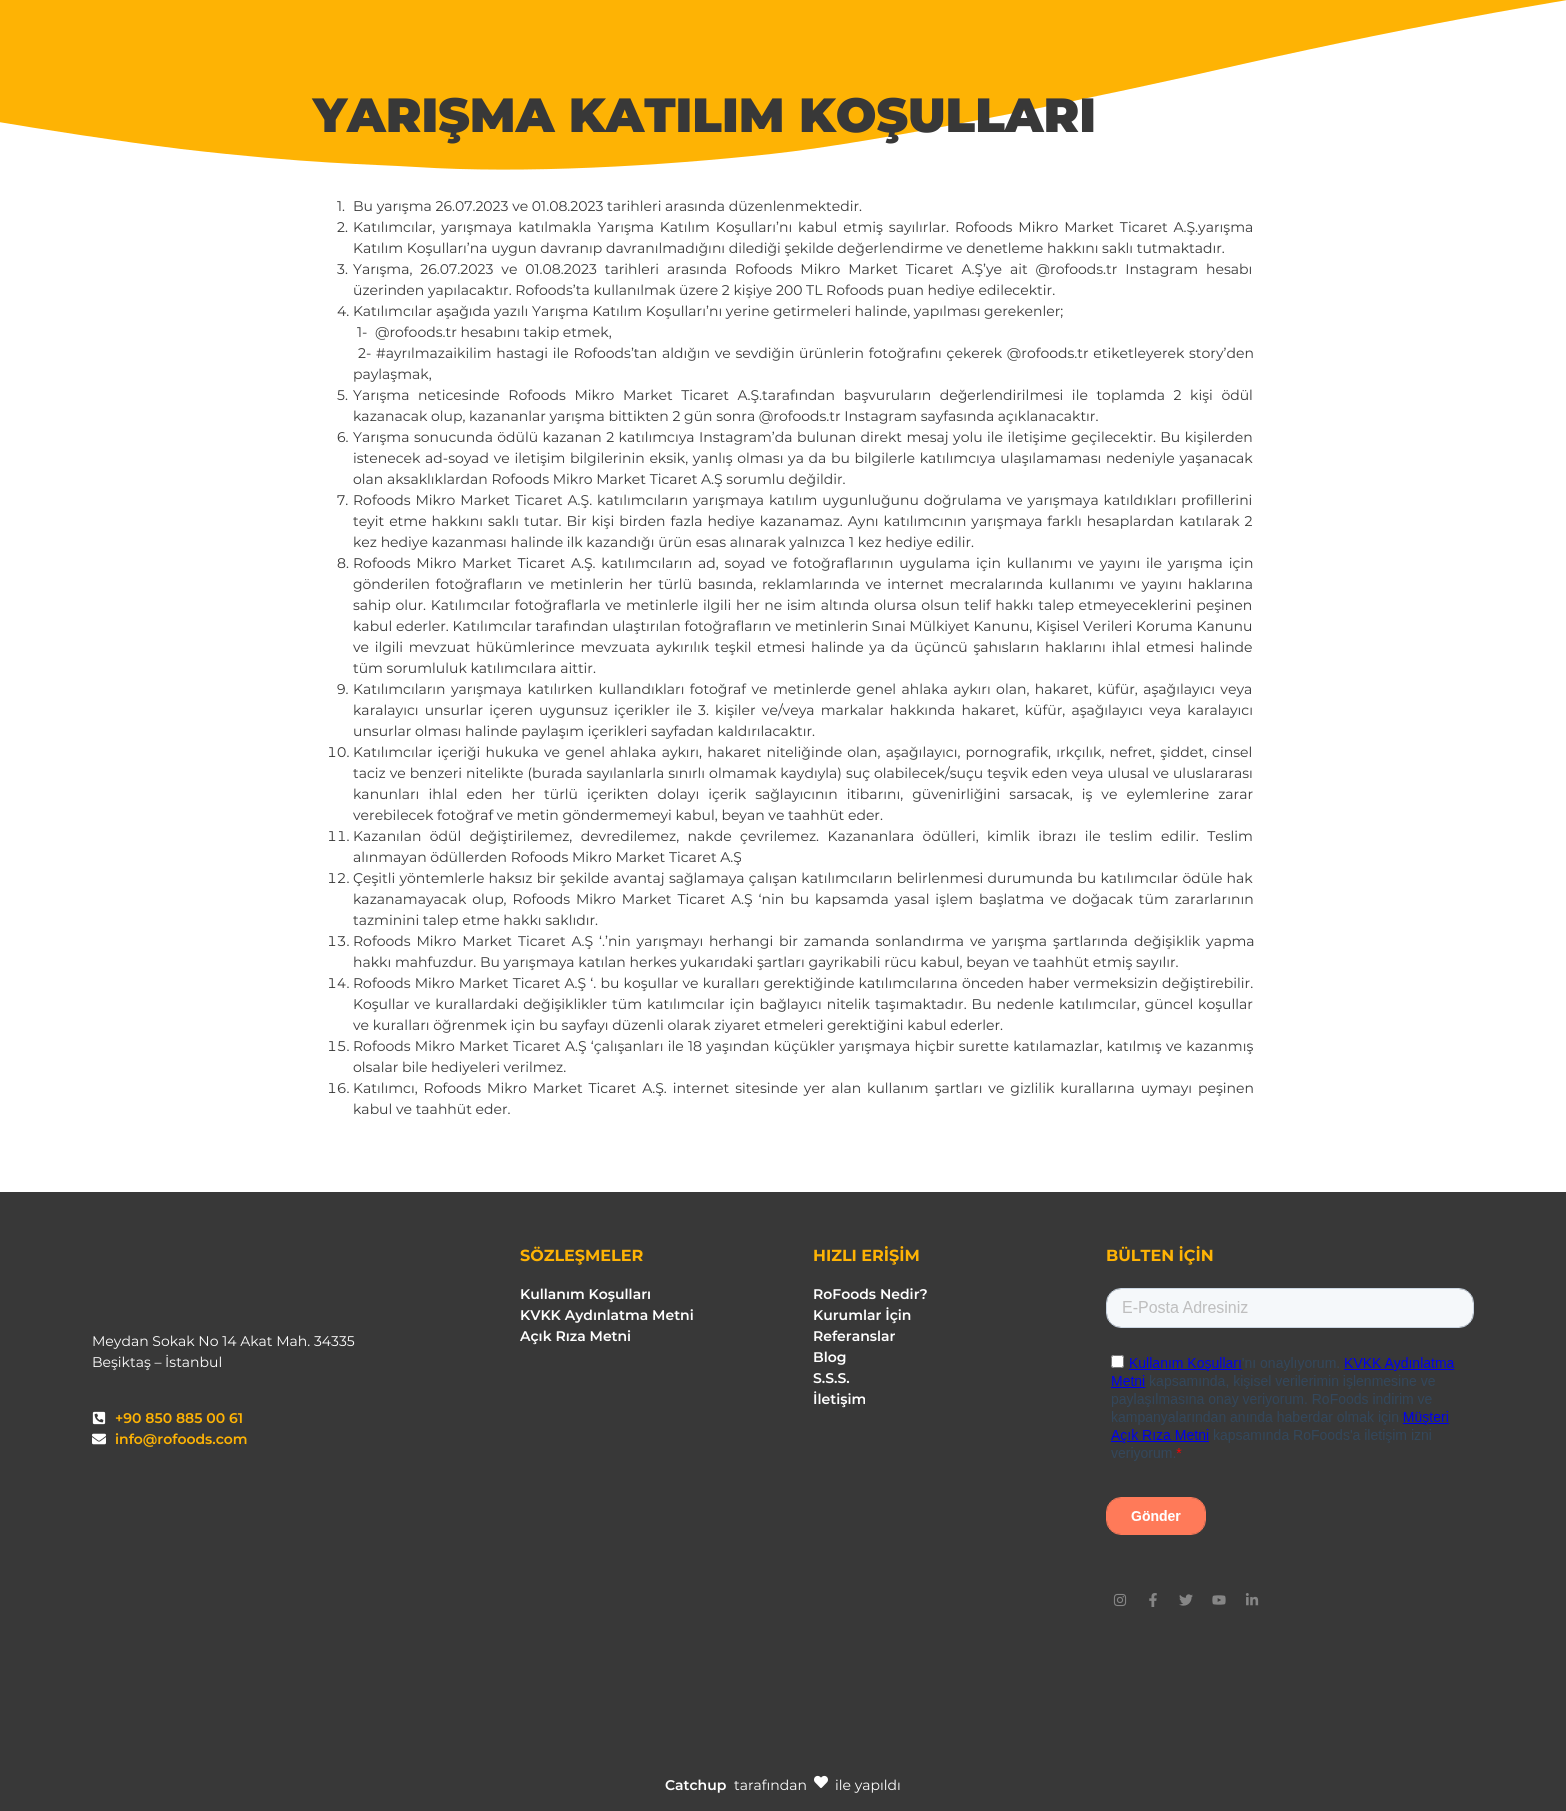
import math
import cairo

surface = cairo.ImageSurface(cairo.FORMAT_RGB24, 1566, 1811)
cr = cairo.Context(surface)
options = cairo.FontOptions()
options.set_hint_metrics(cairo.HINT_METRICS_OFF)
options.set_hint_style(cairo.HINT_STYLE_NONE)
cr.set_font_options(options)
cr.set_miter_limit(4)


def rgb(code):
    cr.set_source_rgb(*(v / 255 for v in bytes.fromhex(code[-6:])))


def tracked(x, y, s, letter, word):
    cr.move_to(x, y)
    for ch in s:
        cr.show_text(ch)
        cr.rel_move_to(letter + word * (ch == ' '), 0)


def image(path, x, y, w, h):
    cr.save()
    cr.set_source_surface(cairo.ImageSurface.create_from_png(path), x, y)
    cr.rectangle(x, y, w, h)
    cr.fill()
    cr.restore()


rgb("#ffffff")
cr.paint()
rgb("#feb304")
cr.new_path()
cr.move_to(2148, -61)
cr.curve_to(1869, -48, 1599, -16, 1243, 64)
cr.curve_to(1104, 96, 882, 142, 771, 154)
cr.curve_to(660, 166, 524, 174, 416, 167)
cr.curve_to(368, 164, 310, 164, 181, 149)
cr.curve_to(53, 133, -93, 107, -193, 87)
cr.curve_to(-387, 47, -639, 32, -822, 30)
cr.curve_to(-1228, 26, -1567, 108, -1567, 108)
cr.line_to(-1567, -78)
cr.line_to(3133, -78)
cr.line_to(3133, 9)
cr.curve_to(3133, 9, 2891, -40, 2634, -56)
cr.curve_to(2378, -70, 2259, -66, 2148, -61)
cr.close_path()
cr.fill()
rgb("#383838")
cr.rectangle(0, 1192, 1566, 619)
cr.fill()
image("img/1.png", 1106, 1288, 368, 247)
image("img/2.png", 1113, 1593, 14, 14)
image("img/3.png", 1149, 1593, 8, 14)
image("img/4.png", 1179, 1594, 14, 12)
image("img/5.png", 1212, 1595, 14, 10)
image("img/6.png", 1245, 1593, 14, 13)
image("img/7.png", 92, 1411, 14, 14)
image("img/8.png", 92, 1433, 14, 12)
image("img/9.png", 814, 1775, 14, 13)
cr.select_font_face("Montserrat Black")
cr.set_font_size(48)
cr.move_to(313, 132)
cr.show_text("YARIŞMA KATILIM KOŞULLARI")
cr.select_font_face("Montserrat")
cr.set_font_size(14)
cr.move_to(337, 211)
cr.show_text("1.")
cr.move_to(353, 211)
cr.show_text("Bu yarışma 26.07.2023 ve 01.08.2023 tarihleri arasında düzenlenmektedir.")
cr.move_to(337, 232)
cr.show_text("2.")
tracked(353, 232, "Katılımcılar, yarışmaya katılmakla Yarışma Katılım Koşulları’nı kabul etmiş sayılırlar. Rofoods Mikro Market Ticaret A.Ş.yarışma", 0, 2.25)
cr.move_to(353, 253)
cr.show_text("Katılım Koşulları’na uygun davranıp davranılmadığını dilediği şekilde değerlendirme ve denetleme hakkını saklı tutmaktadır.")
cr.move_to(337, 274)
cr.show_text("3.")
tracked(353, 274, "Yarışma, 26.07.2023 ve 01.08.2023 tarihleri arasında Rofoods Mikro Market Ticaret A.Ş’ye ait @rofoods.tr Instagram hesabı", 0, 4.25)
for x, y, s in [
    (353, 295, "üzerinden yapılacaktır. Rofoods’ta kullanılmak üzere 2 kişiye 200 TL Rofoods puan hediye edilecektir."),
    (337, 316, "4. Katılımcılar aşağıda yazılı Yarışma Katılım Koşulları’nı yerine getirmeleri halinde, yapılması gerekenler;"),
    (357, 337, "1-"),
    (375, 337, "@rofoods.tr hesabını takip etmek,"),
]:
    cr.move_to(x, y)
    cr.show_text(s)
tracked(358, 358, "2- #ayrılmazaikilim hastagi ile Rofoods’tan aldığın ve sevdiğin ürünlerin fotoğrafını çekerek @rofoods.tr etiketleyerek story’den", 0, 1)
cr.move_to(353, 379)
cr.show_text("paylaşmak,")
cr.move_to(337, 400)
cr.show_text("5.")
tracked(353, 400, "Yarışma neticesinde Rofoods Mikro Market Ticaret A.Ş.tarafından başvuruların değerlendirilmesi ile toplamda 2 kişi ödül", 0, 4.9)
cr.move_to(353, 421)
cr.show_text("kazanacak olup, kazananlar yarışma bittikten 2 gün sonra @rofoods.tr Instagram sayfasında açıklanacaktır.")
cr.move_to(337, 442)
cr.show_text("6.")
tracked(353, 442, "Yarışma sonucunda ödülü kazanan 2 katılımcıya Instagram’da bulunan direkt mesaj yolu ile iletişime geçilecektir. Bu kişilerden", 0, 0.75)
tracked(353, 463, "istenecek ad-soyad ve iletişim bilgilerinin eksik, yanlış olması ya da bu bilgilerle katılımcıya ulaşılamaması nedeniyle yaşanacak", 0, 1)
cr.move_to(353, 484)
cr.show_text("olan aksaklıklardan Rofoods Mikro Market Ticaret A.Ş sorumlu değildir.")
cr.move_to(337, 505)
cr.show_text("7.")
tracked(353, 505, "Rofoods Mikro Market Ticaret A.Ş. katılımcıların yarışmaya katılım uygunluğunu doğrulama ve yarışmaya katıldıkları profillerini", 0, 1.25)
tracked(353, 526, "teyit etme hakkını saklı tutar. Bir kişi birden fazla hediye kazanamaz. Aynı katılımcının yarışmaya farklı hesaplardan katılarak 2", 0, 1.3)
cr.move_to(353, 547)
cr.show_text("kez hediye kazanması halinde ilk kazandığı ürün esas alınarak yalnızca 1 kez hediye edilir.")
cr.move_to(337, 568)
cr.show_text("8.")
tracked(353, 568, "Rofoods Mikro Market Ticaret A.Ş. katılımcıların ad, soyad ve fotoğraflarının uygulama için kullanımı ve yayını ile yarışma için", 0, 2.1)
tracked(353, 589, "gönderilen fotoğrafların ve metinlerin her türlü basında, reklamlarında ve internet mecralarında kullanımı ve yayını haklarına", 0, 2)
tracked(353, 610, "sahip olur. Katılımcılar fotoğraflarla ve metinlerle ilgili her ne isim altında olursa olsun telif hakkı talep etmeyeceklerini peşinen", 0, 1)
cr.move_to(353, 631)
cr.show_text("kabul ederler. Katılımcılar tarafından ulaştırılan fotoğrafların ve metinlerin Sınai Mülkiyet Kanunu, Kişisel Verileri Koruma Kanunu")
tracked(353, 652, "ve ilgili mevzuat hükümlerince mevzuata aykırılık teşkil etmesi halinde ya da üçüncü şahısların haklarını ihlal etmesi halinde", 0, 2)
cr.move_to(353, 673)
cr.show_text("tüm sorumluluk katılımcılara aittir.")
cr.move_to(337, 694)
cr.show_text("9.")
tracked(353, 694, "Katılımcıların yarışmaya katılırken kullandıkları fotoğraf ve metinlerde genel ahlaka aykırı olan, hakaret, küfür, aşağılayıcı veya", 0, 1.75)
tracked(353, 715, "karalayıcı unsurlar içeren uygunsuz içerikler ile 3. kişiler ve/veya markalar hakkında hakaret, küfür, aşağılayıcı veya karalayıcı", 0, 2.5)
cr.move_to(353, 736)
cr.show_text("unsurlar olması halinde paylaşım içerikleri sayfadan kaldırılacaktır.")
cr.select_font_face("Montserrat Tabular")
cr.move_to(327, 757)
cr.show_text("10.")
cr.select_font_face("Montserrat")
tracked(353, 757, "Katılımcılar içeriği hukuka ve genel ahlaka aykırı, hakaret niteliğinde olan, aşağılayıcı, pornografik, ırkçılık, nefret, şiddet, cinsel", 0, 1.5)
tracked(353, 778, "taciz ve benzeri nitelikte (burada sayılanlarla sınırlı olmamak kaydıyla) suç olabilecek/suçu teşvik eden veya ulusal ve uluslararası", 0, 0.3)
tracked(353, 799, "kanunları ihlal eden her türlü içerikten dolayı içerik sağlayıcının itibarını, güvenirliğini sarsacak, iş ve eylemlerine zarar", 0, 5.4)
cr.move_to(353, 820)
cr.show_text("verebilecek fotoğraf ve metin göndermemeyi kabul, beyan ve taahhüt eder.")
cr.select_font_face("Montserrat Tabular")
cr.move_to(327, 841)
cr.show_text("11.")
cr.select_font_face("Montserrat")
tracked(353, 841, "Kazanılan ödül değiştirilemez, devredilemez, nakde çevrilemez. Kazananlara ödülleri, kimlik ibrazı ile teslim edilir. Teslim", 0, 4.75)
cr.move_to(353, 862)
cr.show_text("alınmayan ödüllerden Rofoods Mikro Market Ticaret A.Ş")
cr.select_font_face("Montserrat Tabular")
cr.move_to(327, 883)
cr.show_text("12.")
cr.select_font_face("Montserrat")
tracked(353, 883, "Çeşitli yöntemlerle haksız bir şekilde avantaj sağlamaya çalışan katılımcıların belirlenmesi durumunda bu katılımcılar ödüle hak", 0, 0.6)
tracked(353, 904, "kazanamayacak olup, Rofoods Mikro Market Ticaret A.Ş ‘nin bu kapsamda yasal işlem başlatma ve doğacak tüm zararlarının", 0, 2.25)
cr.move_to(353, 925)
cr.show_text("tazminini talep etme hakkı saklıdır.")
cr.select_font_face("Montserrat Tabular")
cr.move_to(327, 946)
cr.show_text("13.")
cr.select_font_face("Montserrat")
tracked(353, 946, "Rofoods Mikro Market Ticaret A.Ş ‘.’nin yarışmayı herhangi bir zamanda sonlandırma ve yarışma şartlarında değişiklik yapma", 0, 2.25)
cr.move_to(353, 967)
cr.show_text("hakkı mahfuzdur. Bu yarışmaya katılan herkes yukarıdaki şartları gayrikabili rücu kabul, beyan ve taahhüt etmiş sayılır.")
cr.select_font_face("Montserrat Tabular")
cr.move_to(327, 988)
cr.show_text("14.")
cr.select_font_face("Montserrat")
tracked(353, 988, "Rofoods Mikro Market Ticaret A.Ş ‘. bu koşullar ve kuralları gerektiğinde katılımcılarına önceden haber vermeksizin değiştirebilir.", 0, 0.5)
tracked(353, 1009, "Koşullar ve kurallardaki değişiklikler tüm katılımcılar için bağlayıcı nitelik taşımaktadır. Bu nedenle katılımcılar, güncel koşullar", 0, 1.25)
cr.move_to(353, 1030)
cr.show_text("ve kuralları öğrenmek için bu sayfayı düzenli olarak ziyaret etmeleri gerektiğini kabul ederler.")
cr.select_font_face("Montserrat Tabular")
cr.move_to(327, 1051)
cr.show_text("15.")
cr.select_font_face("Montserrat")
tracked(353, 1051, "Rofoods Mikro Market Ticaret A.Ş ‘çalışanları ile 18 yaşından küçükler yarışmaya hiçbir surette katılamazlar, katılmış ve kazanmış", 0, 0.6)
cr.move_to(353, 1072)
cr.show_text("olsalar bile hediyeleri verilmez.")
cr.select_font_face("Montserrat Tabular")
cr.move_to(327, 1093)
cr.show_text("16.")
cr.select_font_face("Montserrat")
tracked(353, 1093, "Katılımcı, Rofoods Mikro Market Ticaret A.Ş. internet sitesinde yer alan kullanım şartları ve gizlilik kurallarına uymayı peşinen", 0, 2.25)
cr.move_to(353, 1114)
cr.show_text("kabul ve taahhüt eder.")
cr.select_font_face("Montserrat", cairo.FONT_SLANT_NORMAL, cairo.FONT_WEIGHT_BOLD)
cr.set_font_size(16)
rgb("#feb304")
cr.move_to(520, 1261)
cr.show_text("SÖZLEŞMELER")
cr.select_font_face("Montserrat SemiBold")
cr.set_font_size(14)
rgb("#ffffff")
for x, y, s in [
    (520, 1299, "Kullanım Koşulları"),
    (520, 1320, "KVKK Aydınlatma Metni"),
    (520, 1341, "Açık Rıza Metni"),
]:
    cr.move_to(x, y)
    cr.show_text(s)
cr.select_font_face("Montserrat", cairo.FONT_SLANT_NORMAL, cairo.FONT_WEIGHT_BOLD)
cr.set_font_size(16)
rgb("#feb304")
cr.move_to(813, 1261)
cr.show_text("HIZLI ERİŞİM")
cr.select_font_face("Montserrat SemiBold")
cr.set_font_size(14)
rgb("#ffffff")
for x, y, s in [
    (813, 1299, "RoFoods Nedir?"),
    (813, 1320, "Kurumlar İçin"),
    (813, 1341, "Referanslar"),
    (813, 1362, "Blog"),
    (813, 1383, "S.S.S."),
    (813, 1404, "İletişim"),
]:
    cr.move_to(x, y)
    cr.show_text(s)
cr.select_font_face("Montserrat", cairo.FONT_SLANT_NORMAL, cairo.FONT_WEIGHT_BOLD)
cr.set_font_size(16)
rgb("#feb304")
cr.move_to(1106, 1261)
cr.show_text("BÜLTEN İÇİN")
cr.select_font_face("Montserrat")
cr.set_font_size(14)
rgb("#ffffff")
cr.move_to(92, 1346)
cr.show_text("Meydan Sokak No 14 Akat Mah. 34335")
cr.move_to(92, 1367)
cr.show_text("Beşiktaş – İstanbul")
cr.select_font_face("Montserrat SemiBold")
rgb("#feb304")
cr.move_to(115, 1423)
cr.show_text("+90 850 885 00 61")
cr.move_to(115, 1444)
cr.show_text("info@rofoods.com")
rgb("#ffffff")
cr.move_to(665, 1790)
cr.show_text("Catchup")
cr.select_font_face("Montserrat")
cr.move_to(734, 1790)
cr.show_text("tarafından")
cr.move_to(835, 1790)
cr.show_text("ile yapıldı")
surface.write_to_png("page.png")
